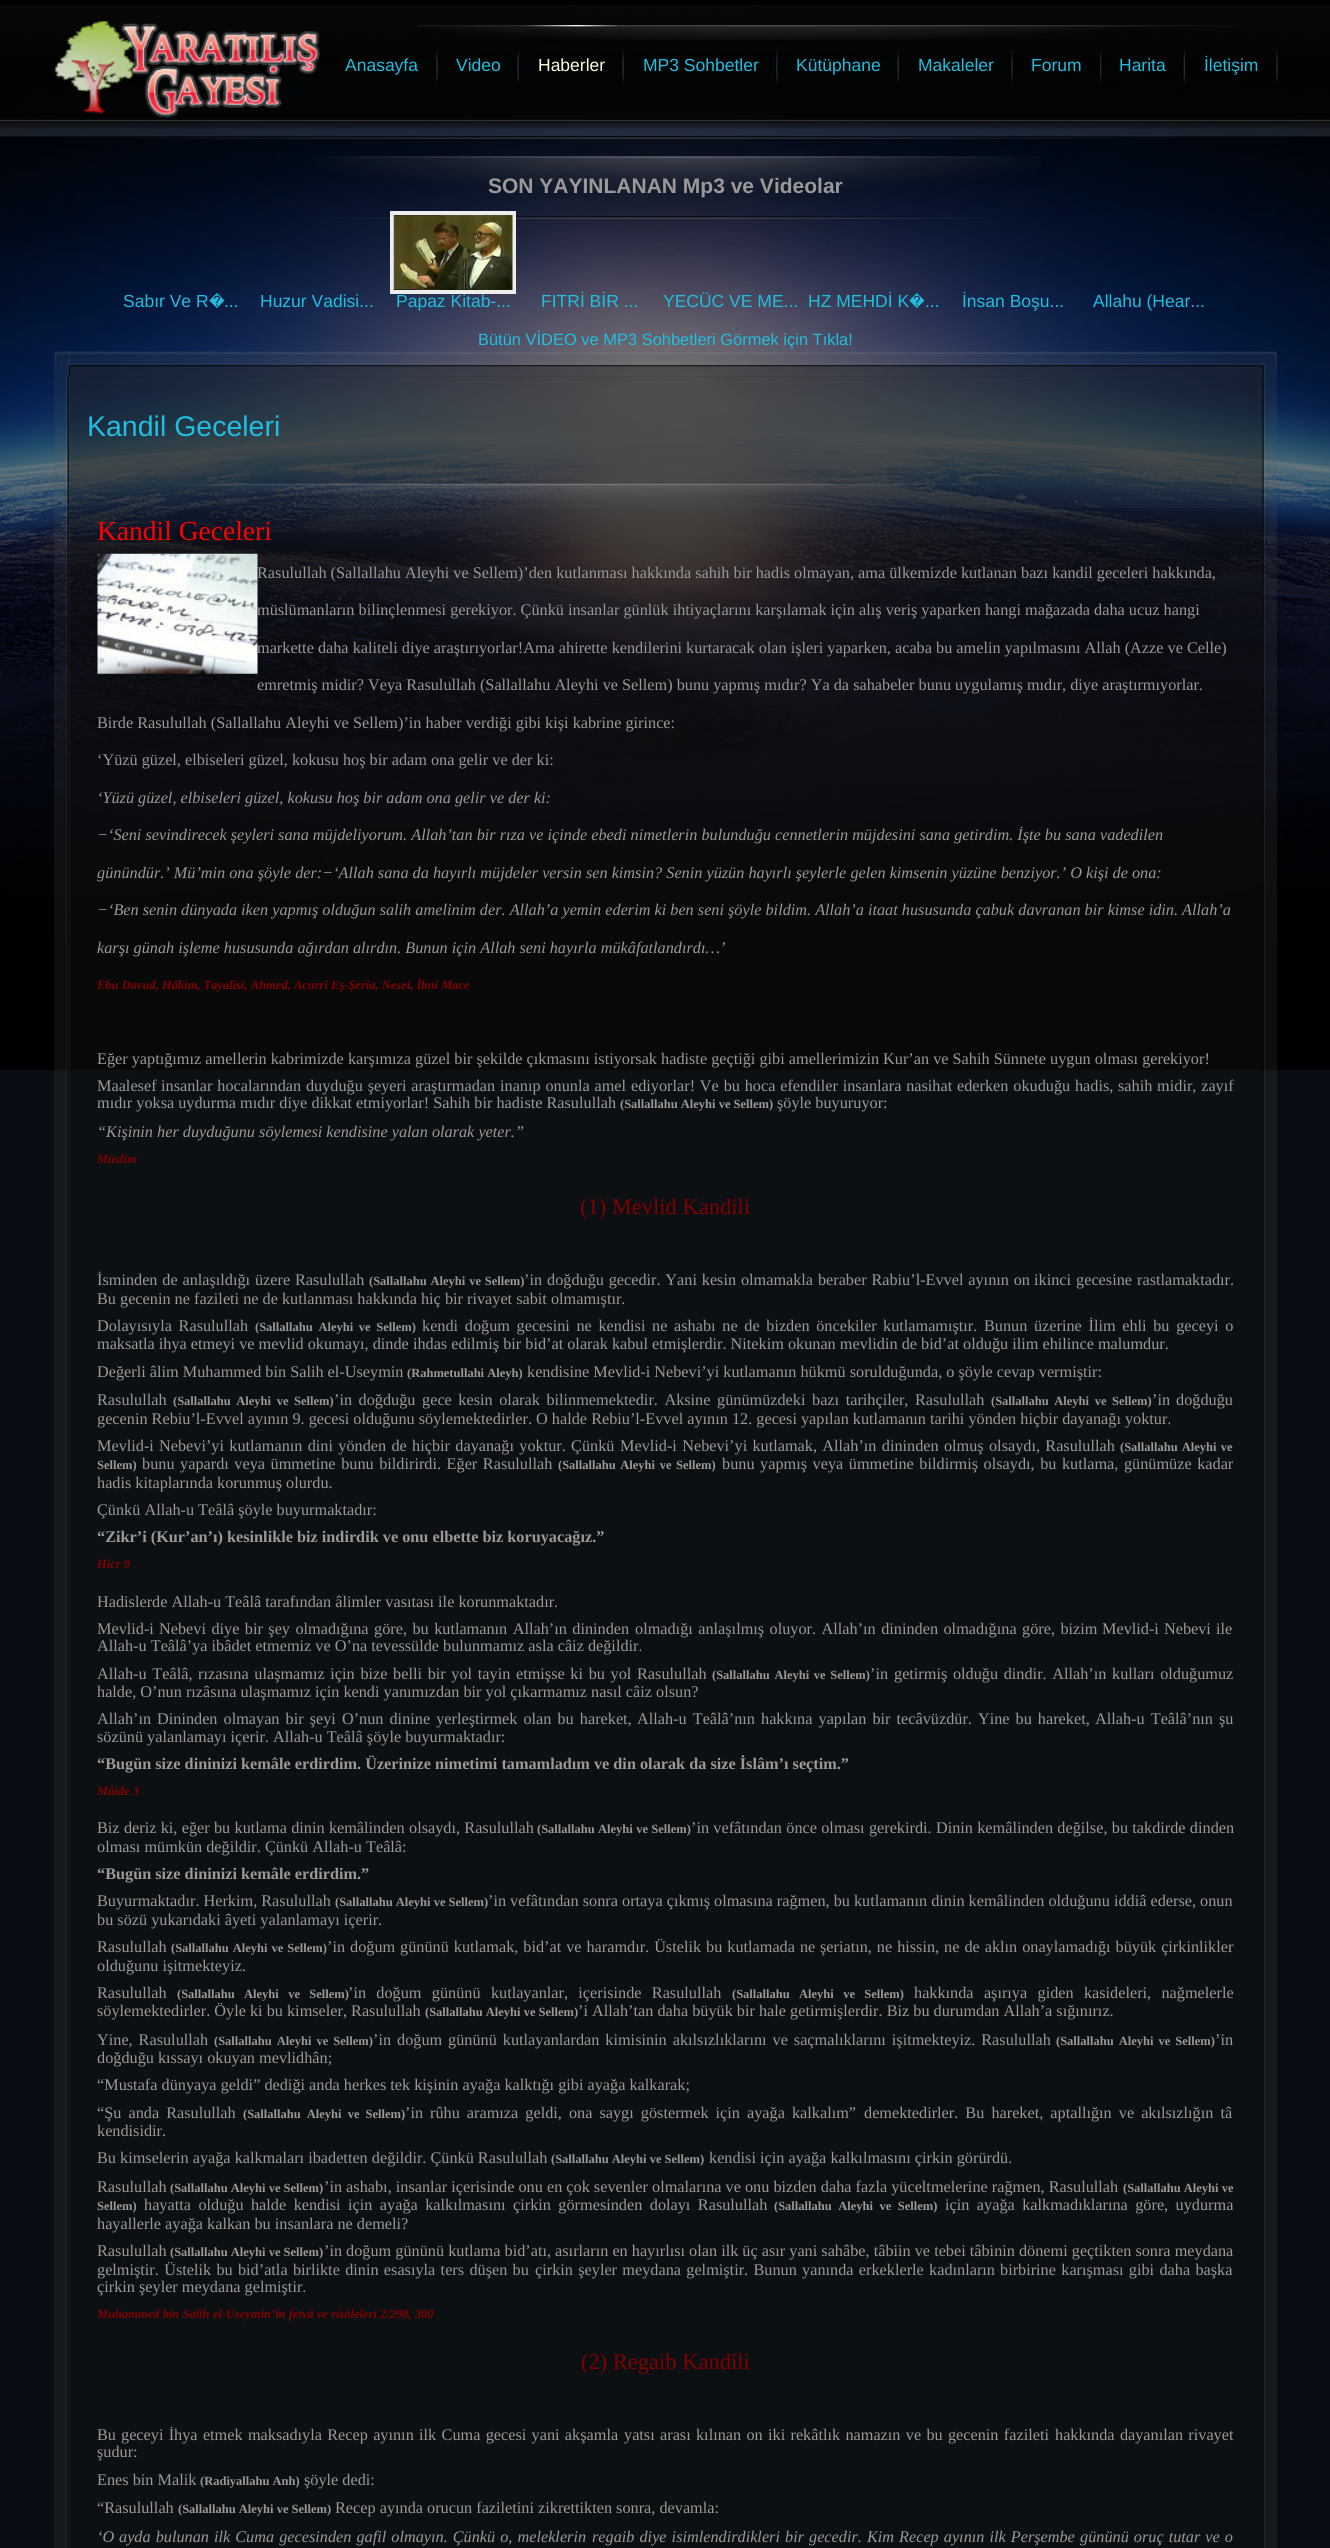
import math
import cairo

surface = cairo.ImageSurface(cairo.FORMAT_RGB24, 1330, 2548)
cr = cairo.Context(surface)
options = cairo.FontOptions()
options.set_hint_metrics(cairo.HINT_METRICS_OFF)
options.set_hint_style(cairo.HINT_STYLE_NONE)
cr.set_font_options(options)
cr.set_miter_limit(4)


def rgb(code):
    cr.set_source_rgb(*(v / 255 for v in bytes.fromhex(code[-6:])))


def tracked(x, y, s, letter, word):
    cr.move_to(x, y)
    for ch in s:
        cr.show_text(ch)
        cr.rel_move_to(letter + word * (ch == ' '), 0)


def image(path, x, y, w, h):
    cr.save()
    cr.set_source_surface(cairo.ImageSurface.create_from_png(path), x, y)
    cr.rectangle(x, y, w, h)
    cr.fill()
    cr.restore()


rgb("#0f1721")
cr.paint()
image("img/1.png", 0, 0, 1330, 1071)
image("img/2.png", 0, 5, 1330, 132)
image("img/3.png", 54, 21, 267, 97)
image("img/4.png", 417, 25, 825, 15)
image("img/5.png", 435, 50, 3, 33)
image("img/6.png", 517, 50, 2, 33)
image("img/7.png", 622, 50, 2, 33)
image("img/8.png", 525, 25, 95, 2)
image("img/9.png", 775, 50, 3, 33)
image("img/10.png", 897, 50, 2, 33)
image("img/11.png", 1010, 50, 3, 33)
image("img/12.png", 1100, 50, 2, 34)
image("img/13.png", 1183, 50, 2, 34)
image("img/14.png", 1276, 50, 2, 33)
image("img/15.png", 139, 136, 987, 3)
cr.set_source_rgba(0, 0, 0, 0.4)
cr.rectangle(0, 137, 1330, 2411)
cr.fill()
image("img/16.png", 316, 156, 726, 63)
cr.rectangle(392, 213, 122, 79)
rgb("#ededed")
cr.set_line_width(4)
cr.stroke()
image("img/17.png", 393, 215, 120, 75)
image("img/18.png", 68, 351, 1195, 26)
image("img/19.png", 54, 351, 16, 26)
image("img/20.png", 1262, 351, 15, 26)
cr.set_source_rgba(0.071, 0.071, 0.071, 0.5)
cr.rectangle(68, 376, 1195, 2172)
cr.fill()
image("img/21.png", 53, 376, 17, 2172)
image("img/22.png", 1262, 376, 15, 2172)
image("img/23.png", 69, 376, 1193, 132)
image("img/24.png", 172, 483, 819, 16)
image("img/25.png", 97, 553, 161, 121)
cr.select_font_face("Liberation Sans")
cr.set_font_size(17.5)
rgb("#21bddf")
cr.move_to(345, 71)
cr.show_text("Anasayfa")
cr.move_to(456, 71)
cr.show_text("Video")
rgb("#fffddd")
cr.move_to(538, 71)
cr.show_text("Haberler")
rgb("#21bddf")
for x, y, s in [
    (643, 71, "MP3 Sohbetler"),
    (796, 71, "Kütüphane"),
    (918, 71, "Makaleler"),
    (1031, 71, "Forum"),
    (1119, 71, "Harita"),
    (1204, 71, "İletişim"),
]:
    cr.move_to(x, y)
    cr.show_text(s)
cr.select_font_face("Liberation Sans", cairo.FONT_SLANT_NORMAL, cairo.FONT_WEIGHT_BOLD)
cr.set_font_size(21)
rgb("#999999")
cr.move_to(488, 193)
cr.show_text("SON YAYINLANAN Mp3 ve Videolar")
cr.select_font_face("Liberation Sans")
cr.set_font_size(17.5)
rgb("#21bddf")
cr.move_to(123, 307)
cr.show_text("Sabır Ve R")
cr.select_font_face("FreeSans")
cr.move_to(209, 307)
cr.show_text("�")
cr.select_font_face("Liberation Sans")
for x, y, s in [
    (224, 307, "..."),
    (260, 307, "Huzur Vadisi..."),
    (396, 307, "Papaz Kitab-..."),
    (541, 307, "FITRİ BİR ..."),
    (663, 307, "YECÜC VE ME..."),
    (808, 307, "HZ MEHDİ K"),
]:
    cr.move_to(x, y)
    cr.show_text(s)
cr.select_font_face("FreeSans")
cr.move_to(909, 307)
cr.show_text("�")
cr.select_font_face("Liberation Sans")
for x, y, s in [
    (925, 307, "..."),
    (962, 307, "İnsan Boşu..."),
    (1093, 307, "Allahu (Hear..."),
]:
    cr.move_to(x, y)
    cr.show_text(s)
cr.set_font_size(16.45)
cr.move_to(478, 345)
cr.show_text("Bütün VİDEO ve MP3 Sohbetleri Görmek için Tıkla!")
cr.set_font_size(28.5)
cr.move_to(87, 436)
cr.show_text("Kandil Geceleri")
cr.select_font_face("Liberation Serif")
cr.set_font_size(27.5)
rgb("#ff0000")
cr.move_to(97, 540)
cr.show_text("Kandil Geceleri")
cr.set_font_size(16.25)
rgb("#999999")
for x, y, s in [
    (257, 578, "Rasulullah (Sallallahu Aleyhi ve Sellem)’den kutlanması hakkında sahih bir hadis olmayan, ama ülkemizde kutlanan bazı kandil geceleri hakkında,"),
    (257, 615, "müslümanların bilinçlenmesi gerekiyor. Çünkü insanlar günlük ihtiyaçlarını karşılamak için alış veriş yaparken hangi mağazada daha ucuz hangi"),
    (257, 653, "markette daha kaliteli diye araştırıyorlar!Ama ahirette kendilerini kurtaracak olan işleri yaparken, acaba bu amelin yapılmasını Allah (Azze ve Celle)"),
    (257, 690, "emretmiş midir? Veya Rasulullah (Sallallahu Aleyhi ve Sellem) bunu yapmış mıdır? Ya da sahabeler bunu uygulamış mıdır, diye araştırmıyorlar."),
    (97, 728, "Birde Rasulullah (Sallallahu Aleyhi ve Sellem)’in haber verdiği gibi kişi kabrine girince:"),
    (97, 765, "‘Yüzü güzel, elbiseleri güzel, kokusu hoş bir adam ona gelir ve der ki:"),
]:
    cr.move_to(x, y)
    cr.show_text(s)
cr.select_font_face("Liberation Serif", cairo.FONT_SLANT_ITALIC)
for x, y, s in [
    (97, 803, "‘Yüzü güzel, elbiseleri güzel, kokusu hoş bir adam ona gelir ve der ki:"),
    (97, 840, "−‘Seni sevindirecek şeyleri sana müjdeliyorum. Allah’tan bir rıza ve içinde ebedi nimetlerin bulunduğu cennetlerin müjdesini sana getirdim. İşte bu sana vadedilen"),
    (97, 878, "günündür.’ Mü’min ona şöyle der:−‘Allah sana da hayırlı müjdeler versin sen kimsin? Senin yüzün hayırlı şeylerle gelen kimsenin yüzüne benziyor.’ O kişi de ona:"),
    (97, 915, "−‘Ben senin dünyada iken yapmış olduğun salih amelinim der. Allah’a yemin ederim ki ben seni şöyle bildim. Allah’a itaat hususunda çabuk davranan bir kimse idin. Allah’a"),
    (97, 953, "karşı günah işleme hususunda ağırdan alırdın. Bunun için Allah seni hayırla mükâfatlandırdı…’"),
]:
    cr.move_to(x, y)
    cr.show_text(s)
cr.select_font_face("Liberation Serif", cairo.FONT_SLANT_ITALIC, cairo.FONT_WEIGHT_BOLD)
cr.set_font_size(12.5)
rgb("#800000")
cr.move_to(97, 989)
cr.show_text("Ebu Davud, Hâkim, Tayalisi, Ahmed, Acurri Eş-Şeria, Nesei, İbni Mace")
cr.select_font_face("Liberation Serif")
cr.set_font_size(16.25)
rgb("#999999")
cr.move_to(97, 1064)
cr.show_text("Eğer yaptığımız amellerin kabrimizde karşımıza güzel bir şekilde çıkmasını istiyorsak hadiste geçtiği gibi amellerimizin Kur’an ve Sahih Sünnete uygun olması gerekiyor!")
cr.move_to(97, 1091)
cr.show_text("Maalesef")
for x, y, s in [
    (161, 1091, "insanlar hocalarından duyduğu şeyeri araştırmadan inanıp onunla amel"),
    (631, 1091, "ediyorlar! Ve bu hoca efendiler insanlara nasihat ederken okuduğu hadis,"),
    (1118, 1091, "sahih midir, zayıf"),
]:
    tracked(x, y, s, 0, 0.75)
cr.move_to(97, 1108)
cr.show_text("mıdır yoksa uydurma mıdır diye dikkat etmiyorlar! Sahih bir hadiste Rasulullah")
cr.select_font_face("Liberation Serif", cairo.FONT_SLANT_NORMAL, cairo.FONT_WEIGHT_BOLD)
cr.set_font_size(12.5)
cr.move_to(620, 1108)
cr.show_text("(Sallallahu Aleyhi ve Sellem)")
cr.select_font_face("Liberation Serif")
cr.set_font_size(16.25)
cr.move_to(777, 1108)
cr.show_text("şöyle buyuruyor:")
cr.select_font_face("Liberation Serif", cairo.FONT_SLANT_ITALIC)
cr.move_to(97, 1137)
cr.show_text("“Kişinin her duyduğunu söylemesi kendisine yalan olarak yeter.”")
cr.select_font_face("Liberation Serif", cairo.FONT_SLANT_ITALIC, cairo.FONT_WEIGHT_BOLD)
cr.set_font_size(12.5)
rgb("#800000")
cr.move_to(97, 1163)
cr.show_text("Müslim")
cr.select_font_face("Liberation Serif")
cr.set_font_size(22.5)
cr.move_to(580, 1214)
cr.show_text("(1) Mevlid Kandili")
cr.set_font_size(16.25)
rgb("#999999")
tracked(97, 1285, "İsminden de anlaşıldığı üzere Rasulullah", 0, 0.75)
cr.select_font_face("Liberation Serif", cairo.FONT_SLANT_NORMAL, cairo.FONT_WEIGHT_BOLD)
cr.set_font_size(12.5)
tracked(369, 1285, "(Sallallahu Aleyhi ve Sellem)", 0, 0.75)
cr.select_font_face("Liberation Serif")
cr.set_font_size(16.25)
cr.move_to(524, 1285)
cr.show_text("’in")
tracked(547, 1285, "doğduğu gecedir. Yani kesin olmamakla beraber Rabiu’l-Evvel ayının on", 0, 0.75)
tracked(1034, 1285, "ikinci gecesine rastlamaktadır.", 0, 1)
cr.move_to(97, 1304)
cr.show_text("Bu gecenin ne fazileti ne de kutlanması hakkında hiç bir rivayet sabit olmamıştır.")
tracked(97, 1331, "Dolayısıyla Rasulullah", 0, 2.6)
cr.select_font_face("Liberation Serif", cairo.FONT_SLANT_NORMAL, cairo.FONT_WEIGHT_BOLD)
cr.set_font_size(12.5)
tracked(255, 1331, "(Sallallahu Aleyhi ve Sellem)", 0, 2.6)
cr.select_font_face("Liberation Serif")
cr.set_font_size(16.25)
tracked(422, 1331, "kendi doğum gecesini ne kendisi ne ashabı ne de bizden öncekiler", 0, 2.6)
tracked(883, 1331, "kutlamamıştır. Bunun üzerine İlim ehli bu geceyi o", 0, 2.6)
cr.move_to(97, 1349)
cr.show_text("maksatla ihya etmeyi ve mevlid okumayı, dinde ihdas edilmiş bir bid’at olarak kabul etmişlerdir. Nitekim okunan mevlidin de bid’at olduğu ilim ehilince malumdur.")
cr.move_to(97, 1377)
cr.show_text("Değerli âlim Muhammed bin Salih el-Useymin")
cr.select_font_face("Liberation Serif", cairo.FONT_SLANT_NORMAL, cairo.FONT_WEIGHT_BOLD)
cr.set_font_size(12.5)
cr.move_to(407, 1377)
cr.show_text("(Rahmetullahi Aleyh)")
cr.select_font_face("Liberation Serif")
cr.set_font_size(16.25)
cr.move_to(527, 1377)
cr.show_text("kendisine Mevlid-i Nebevi’yi kutlamanın hükmü sorulduğunda, o şöyle cevap vermiştir:")
cr.move_to(97, 1405)
cr.show_text("Rasulullah")
cr.select_font_face("Liberation Serif", cairo.FONT_SLANT_NORMAL, cairo.FONT_WEIGHT_BOLD)
cr.set_font_size(12.5)
tracked(173, 1405, "(Sallallahu Aleyhi ve Sellem)", 0, 2.5)
cr.select_font_face("Liberation Serif")
cr.set_font_size(16.25)
tracked(334, 1405, "’in doğduğu gece kesin olarak bilinmemektedir. Aksine günümüzdeki bazı tarihçiler, Rasulullah", 0, 2.5)
cr.select_font_face("Liberation Serif", cairo.FONT_SLANT_NORMAL, cairo.FONT_WEIGHT_BOLD)
cr.set_font_size(12.5)
tracked(991, 1405, "(Sallallahu Aleyhi ve Sellem)", 0, 2.5)
cr.select_font_face("Liberation Serif")
cr.set_font_size(16.25)
for x, y, s in [
    (1152, 1405, "’in"),
    (1176, 1405, "doğduğu"),
    (97, 1424, "gecenin Rebiu’l-Evvel ayının 9. gecesi olduğunu söylemektedirler. O halde Rebiu’l-Evvel ayının 12. gecesi yapılan kutlamanın tarihi yönden hiçbir dayanağı yoktur."),
    (97, 1451, "Mevlid-i"),
]:
    cr.move_to(x, y)
    cr.show_text(s)
tracked(159, 1451, "Nebevi’yi kutlamanın dini yönden de hiçbir dayanağı yoktur. Çünkü", 0, 1.25)
tracked(620, 1451, "Mevlid-i Nebevi’yi kutlamak, Allah’ın dininden olmuş olsaydı, Rasulullah", 0, 1.25)
cr.select_font_face("Liberation Serif", cairo.FONT_SLANT_NORMAL, cairo.FONT_WEIGHT_BOLD)
cr.set_font_size(12.5)
tracked(1120, 1451, "(Sallallahu Aleyhi ve", 0, 1)
cr.move_to(97, 1469)
cr.show_text("Sellem)")
cr.select_font_face("Liberation Serif")
cr.set_font_size(16.25)
tracked(142, 1469, "bunu yapardı veya ümmetine bunu bildirirdi. Eğer Rasulullah", 0, 1.5)
cr.select_font_face("Liberation Serif", cairo.FONT_SLANT_NORMAL, cairo.FONT_WEIGHT_BOLD)
cr.set_font_size(12.5)
tracked(558, 1469, "(Sallallahu Aleyhi ve Sellem)", 0, 1.5)
cr.select_font_face("Liberation Serif")
cr.set_font_size(16.25)
tracked(722, 1469, "bunu yapmış veya ümmetine bildirmiş olsaydı, bu kutlama, günümüze kadar", 0, 1.5)
cr.move_to(97, 1488)
cr.show_text("hadis kitaplarında korunmuş olurdu.")
cr.move_to(97, 1515)
cr.show_text("Çünkü Allah-u Teâlâ şöyle buyurmaktadır:")
cr.select_font_face("Liberation Serif", cairo.FONT_SLANT_NORMAL, cairo.FONT_WEIGHT_BOLD)
cr.move_to(97, 1542)
cr.show_text("“Zikr’i (Kur’an’ı) kesinlikle biz indirdik ve onu elbette biz koruyacağız.”")
cr.select_font_face("Liberation Serif", cairo.FONT_SLANT_ITALIC, cairo.FONT_WEIGHT_BOLD)
cr.set_font_size(12.5)
rgb("#800000")
cr.move_to(97, 1568)
cr.show_text("Hicr 9")
cr.select_font_face("Liberation Serif")
cr.set_font_size(16.25)
rgb("#999999")
cr.move_to(97, 1607)
cr.show_text("Hadislerde Allah-u Teâlâ tarafından âlimler vasıtası ile korunmaktadır.")
cr.move_to(97, 1634)
cr.show_text("Mevlid-i")
tracked(159, 1634, "Nebevi diye bir şey olmadığına göre, bu kutlamanın Allah’ın dininden", 0, 1.4)
tracked(635, 1634, "olmadığı anlaşılmış oluyor. Allah’ın dininden olmadığına göre, bizim", 0, 1.4)
tracked(1102, 1634, "Mevlid-i Nebevi ile", 0, 1)
cr.move_to(97, 1651)
cr.show_text("Allah-u Teâlâ’ya ibâdet etmemiz ve O’na tevessülde bulunmamız asla câiz değildir.")
tracked(97, 1679, "Allah-u Teâlâ, rızasına ulaşmamız için bize belli bir yol tayin etmişse ki bu yol Rasulullah", 0, 1.6)
cr.select_font_face("Liberation Serif", cairo.FONT_SLANT_NORMAL, cairo.FONT_WEIGHT_BOLD)
cr.set_font_size(12.5)
tracked(712, 1679, "(Sallallahu Aleyhi ve Sellem)", 0, 1.6)
cr.select_font_face("Liberation Serif")
cr.set_font_size(16.25)
cr.move_to(870, 1679)
cr.show_text("’in")
tracked(894, 1679, "getirmiş olduğu dindir. Allah’ın kulları olduğumuz", 0, 1.6)
cr.move_to(97, 1697)
cr.show_text("halde, O’nun rızâsına ulaşmamız için kendi yanımızdan bir yol çıkarmamız nasıl câiz olsun?")
cr.move_to(97, 1724)
cr.show_text("Allah’ın")
for x, y, s in [
    (157, 1724, "Dininden olmayan bir şeyi O’nun dinine yerleştirmek olan bu hareket,"),
    (637, 1724, "Allah-u Teâlâ’nın hakkına yapılan bir tecâvüzdür. Yine bu hareket,"),
    (1095, 1724, "Allah-u Teâlâ’nın şu"),
]:
    tracked(x, y, s, 0, 2)
cr.move_to(97, 1742)
cr.show_text("sözünü yalanlamayı içerir. Allah-u Teâlâ şöyle buyurmaktadır:")
cr.select_font_face("Liberation Serif", cairo.FONT_SLANT_NORMAL, cairo.FONT_WEIGHT_BOLD)
cr.move_to(97, 1769)
cr.show_text("“Bugün size dininizi kemâle erdirdim. Üzerinize nimetimi tamamladım ve din olarak da size İslâm’ı seçtim.”")
cr.select_font_face("Liberation Serif", cairo.FONT_SLANT_ITALIC, cairo.FONT_WEIGHT_BOLD)
cr.set_font_size(12.5)
rgb("#800000")
cr.move_to(97, 1795)
cr.show_text("Mâide 3")
cr.select_font_face("Liberation Serif")
cr.set_font_size(16.25)
rgb("#999999")
tracked(97, 1833, "Biz deriz ki, eğer bu kutlama dinin kemâlinden olsaydı, Rasulullah", 0, 0.25)
cr.select_font_face("Liberation Serif", cairo.FONT_SLANT_NORMAL, cairo.FONT_WEIGHT_BOLD)
cr.set_font_size(12.5)
tracked(537, 1833, "(Sallallahu Aleyhi ve Sellem)", 0, 0.25)
cr.select_font_face("Liberation Serif")
cr.set_font_size(16.25)
tracked(691, 1833, "’in vefâtından önce olması gerekirdi. Dinin kemâlinden değilse, bu takdirde dinden", 0, 0.25)
cr.move_to(97, 1852)
cr.show_text("olması mümkün değildir. Çünkü Allah-u Teâlâ:")
cr.select_font_face("Liberation Serif", cairo.FONT_SLANT_NORMAL, cairo.FONT_WEIGHT_BOLD)
cr.move_to(97, 1879)
cr.show_text("“Bugün size dininizi kemâle erdirdim.”")
cr.select_font_face("Liberation Serif")
cr.move_to(97, 1906)
cr.show_text("Buyurmaktadır. Herkim, Rasulullah")
cr.select_font_face("Liberation Serif", cairo.FONT_SLANT_NORMAL, cairo.FONT_WEIGHT_BOLD)
cr.set_font_size(12.5)
cr.move_to(335, 1906)
cr.show_text("(Sallallahu Aleyhi ve Sellem)")
cr.select_font_face("Liberation Serif")
cr.set_font_size(16.25)
for x, y, s in [
    (488, 1906, "’in vefâtından sonra ortaya çıkmış olmasına rağmen, bu kutlamanın dinin kemâlinden olduğunu iddiâ ederse, onun"),
    (97, 1925, "bu sözü yukarıdaki âyeti yalanlamayı içerir."),
    (97, 1952, "Rasulullah"),
]:
    cr.move_to(x, y)
    cr.show_text(s)
cr.select_font_face("Liberation Serif", cairo.FONT_SLANT_NORMAL, cairo.FONT_WEIGHT_BOLD)
cr.set_font_size(12.5)
tracked(171, 1952, "(Sallallahu Aleyhi ve Sellem)", 0, 0.9)
cr.select_font_face("Liberation Serif")
cr.set_font_size(16.25)
cr.move_to(327, 1952)
cr.show_text("’in")
tracked(350, 1952, "doğum gününü kutlamak, bid’at ve haramdır. Üstelik bu kutlamada ne", 0, 0.9)
tracked(820, 1952, "şeriatın, ne hissin, ne de aklın onaylamadığı büyük çirkinlikler", 0, 0.9)
cr.move_to(97, 1971)
cr.show_text("olduğunu işitmekteyiz.")
cr.move_to(97, 1998)
cr.show_text("Rasulullah")
cr.select_font_face("Liberation Serif", cairo.FONT_SLANT_NORMAL, cairo.FONT_WEIGHT_BOLD)
cr.set_font_size(12.5)
tracked(177, 1998, "(Sallallahu Aleyhi ve Sellem)", 0, 6.25)
cr.select_font_face("Liberation Serif")
cr.set_font_size(16.25)
tracked(348, 1998, "’in doğum gününü kutlayanlar, içerisinde Rasulullah", 0, 6.25)
cr.select_font_face("Liberation Serif", cairo.FONT_SLANT_NORMAL, cairo.FONT_WEIGHT_BOLD)
cr.set_font_size(12.5)
tracked(732, 1998, "(Sallallahu Aleyhi ve Sellem)", 0, 6.25)
cr.select_font_face("Liberation Serif")
cr.set_font_size(16.25)
tracked(914, 1998, "hakkında aşırıya giden kasideleri, nağmelerle", 0, 6.25)
cr.move_to(97, 2016)
cr.show_text("söylemektedirler. Öyle ki bu kimseler, Rasulullah")
cr.select_font_face("Liberation Serif", cairo.FONT_SLANT_NORMAL, cairo.FONT_WEIGHT_BOLD)
cr.set_font_size(12.5)
cr.move_to(425, 2016)
cr.show_text("(Sallallahu Aleyhi ve Sellem)")
cr.select_font_face("Liberation Serif")
cr.set_font_size(16.25)
cr.move_to(578, 2016)
cr.show_text("’i Allah’tan daha büyük bir hale getirmişlerdir. Biz bu durumdan Allah’a sığınırız.")
tracked(97, 2045, "Yine, Rasulullah", 0, 1.9)
cr.select_font_face("Liberation Serif", cairo.FONT_SLANT_NORMAL, cairo.FONT_WEIGHT_BOLD)
cr.set_font_size(12.5)
tracked(214, 2045, "(Sallallahu Aleyhi ve Sellem)", 0, 1.9)
cr.select_font_face("Liberation Serif")
cr.set_font_size(16.25)
tracked(373, 2045, "’in doğum gününü kutlayanlardan kimisinin akılsızlıklarını ve saçmalıklarını işitmekteyiz. Rasulullah", 0, 1.9)
cr.select_font_face("Liberation Serif", cairo.FONT_SLANT_NORMAL, cairo.FONT_WEIGHT_BOLD)
cr.set_font_size(12.5)
tracked(1056, 2045, "(Sallallahu Aleyhi ve Sellem)", 0, 1.9)
cr.select_font_face("Liberation Serif")
cr.set_font_size(16.25)
for x, y, s in [
    (1215, 2045, "’in"),
    (97, 2063, "doğduğu kıssayı okuyan mevlidhân;"),
    (97, 2090, "“Mustafa dünyaya geldi” dediği anda herkes tek kişinin ayağa kalktığı gibi ayağa kalkarak;"),
]:
    cr.move_to(x, y)
    cr.show_text(s)
tracked(97, 2118, "“Şu anda Rasulullah", 0, 3)
cr.select_font_face("Liberation Serif", cairo.FONT_SLANT_NORMAL, cairo.FONT_WEIGHT_BOLD)
cr.set_font_size(12.5)
tracked(243, 2118, "(Sallallahu Aleyhi ve Sellem)", 0, 3)
cr.select_font_face("Liberation Serif")
cr.set_font_size(16.25)
cr.move_to(405, 2118)
cr.show_text("’in")
tracked(430, 2118, "rûhu aramıza geldi, ona saygı göstermek için ayağa kalkalım”", 0, 3)
tracked(864, 2118, "demektedirler. Bu hareket, aptallığın ve akılsızlığın tâ", 0, 3)
cr.move_to(97, 2136)
cr.show_text("kendisidir.")
cr.move_to(97, 2163)
cr.show_text("Bu kimselerin ayağa kalkmaları ibadetten değildir. Çünkü Rasulullah")
cr.select_font_face("Liberation Serif", cairo.FONT_SLANT_NORMAL, cairo.FONT_WEIGHT_BOLD)
cr.set_font_size(12.5)
cr.move_to(551, 2163)
cr.show_text("(Sallallahu Aleyhi ve Sellem)")
cr.select_font_face("Liberation Serif")
cr.set_font_size(16.25)
cr.move_to(709, 2163)
cr.show_text("kendisi için ayağa kalkılmasını çirkin görürdü.")
cr.move_to(97, 2192)
cr.show_text("Rasulullah")
cr.select_font_face("Liberation Serif", cairo.FONT_SLANT_NORMAL, cairo.FONT_WEIGHT_BOLD)
cr.set_font_size(12.5)
cr.move_to(170, 2192)
cr.show_text("(Sallallahu Aleyhi ve Sellem)")
cr.select_font_face("Liberation Serif")
cr.set_font_size(16.25)
cr.move_to(324, 2192)
cr.show_text("’in ashabı, insanlar içerisinde onu en çok sevenler olmalarına ve onu bizden daha fazla yüceltmelerine rağmen, Rasulullah")
cr.select_font_face("Liberation Serif", cairo.FONT_SLANT_NORMAL, cairo.FONT_WEIGHT_BOLD)
cr.set_font_size(12.5)
cr.move_to(1123, 2192)
cr.show_text("(Sallallahu Aleyhi ve")
cr.move_to(97, 2210)
cr.show_text("Sellem)")
cr.select_font_face("Liberation Serif")
cr.set_font_size(16.25)
tracked(144, 2210, "hayatta olduğu halde kendisi için ayağa kalkılmasını çirkin görmesinden dolayı Rasulullah", 0, 3.4)
cr.select_font_face("Liberation Serif", cairo.FONT_SLANT_NORMAL, cairo.FONT_WEIGHT_BOLD)
cr.set_font_size(12.5)
tracked(774, 2210, "(Sallallahu Aleyhi ve Sellem)", 0, 3.4)
cr.select_font_face("Liberation Serif")
cr.set_font_size(16.25)
tracked(945, 2210, "için ayağa kalkmadıklarına göre, uydurma", 0, 3.4)
cr.move_to(97, 2229)
cr.show_text("hayallerle ayağa kalkan bu insanlara ne demeli?")
cr.move_to(97, 2256)
cr.show_text("Rasulullah")
cr.select_font_face("Liberation Serif", cairo.FONT_SLANT_NORMAL, cairo.FONT_WEIGHT_BOLD)
cr.set_font_size(12.5)
cr.move_to(170, 2256)
cr.show_text("(Sallallahu Aleyhi ve Sellem)")
cr.select_font_face("Liberation Serif")
cr.set_font_size(16.25)
cr.move_to(324, 2256)
cr.show_text("’in doğum gününü kutlama bid’atı, asırların en hayırlısı olan ilk üç asır yani sahâbe, tâbiin ve tebei tâbinin dönemi geçtikten sonra meydana")
for x, y, s in [
    (97, 2275, "gelmiştir. Üstelik bu bid’atla birlikte dinin esasıyla ters düşen bu"),
    (535, 2275, "çirkin şeyler meydana gelmiştir. Bunun yanında erkeklerle kadınların"),
    (1000, 2275, "birbirine karışması gibi daha başka"),
]:
    tracked(x, y, s, 0, 1.25)
cr.move_to(97, 2292)
cr.show_text("çirkin şeyler meydana gelmiştir.")
cr.select_font_face("Liberation Serif", cairo.FONT_SLANT_ITALIC, cairo.FONT_WEIGHT_BOLD)
cr.set_font_size(12.5)
rgb("#800000")
cr.move_to(97, 2318)
cr.show_text("Muhammed bin Salih el-Useymin’in fetvâ ve risâleleri 2/298, 300")
cr.select_font_face("Liberation Serif")
cr.set_font_size(22.5)
cr.move_to(581, 2369)
cr.show_text("(2) Regaib Kandili")
cr.set_font_size(16.25)
rgb("#999999")
cr.move_to(97, 2440)
cr.show_text("Bu")
for x, y, s in [
    (121, 2440, "geceyi İhya etmek maksadıyla Recep ayının ilk Cuma gecesi yani akşamla"),
    (624, 2440, "yatsı arası kılınan on iki rekâtlık namazın ve bu gecenin fazileti"),
    (1055, 2440, "hakkında dayanılan rivayet"),
]:
    tracked(x, y, s, 0, 1.25)
cr.move_to(97, 2457)
cr.show_text("şudur:")
cr.move_to(97, 2485)
cr.show_text("Enes bin Malik")
cr.select_font_face("Liberation Serif", cairo.FONT_SLANT_NORMAL, cairo.FONT_WEIGHT_BOLD)
cr.set_font_size(12.5)
cr.move_to(200, 2485)
cr.show_text("(Radiyallahu Anh)")
cr.select_font_face("Liberation Serif")
cr.set_font_size(16.25)
cr.move_to(304, 2485)
cr.show_text("şöyle dedi:")
cr.move_to(97, 2513)
cr.show_text("“Rasulullah")
cr.select_font_face("Liberation Serif", cairo.FONT_SLANT_NORMAL, cairo.FONT_WEIGHT_BOLD)
cr.set_font_size(12.5)
cr.move_to(178, 2513)
cr.show_text("(Sallallahu Aleyhi ve Sellem)")
cr.select_font_face("Liberation Serif")
cr.set_font_size(16.25)
cr.move_to(335, 2513)
cr.show_text("Recep ayında orucun faziletini zikrettikten sonra, devamla:")
cr.select_font_face("Liberation Serif", cairo.FONT_SLANT_ITALIC)
cr.move_to(97, 2542)
cr.show_text("‘O")
for x, y, s in [
    (119, 2542, "ayda bulunan ilk Cuma gecesinden gafil olmayın. Çünkü o, meleklerin"),
    (592, 2542, "regaib diye isimlendirdikleri bir gecedir. Kim Recep ayının ilk Perşembe"),
    (1080, 2542, "gününü oruç tutar ve o"),
]:
    tracked(x, y, s, 0, 1)
surface.write_to_png("page.png")
